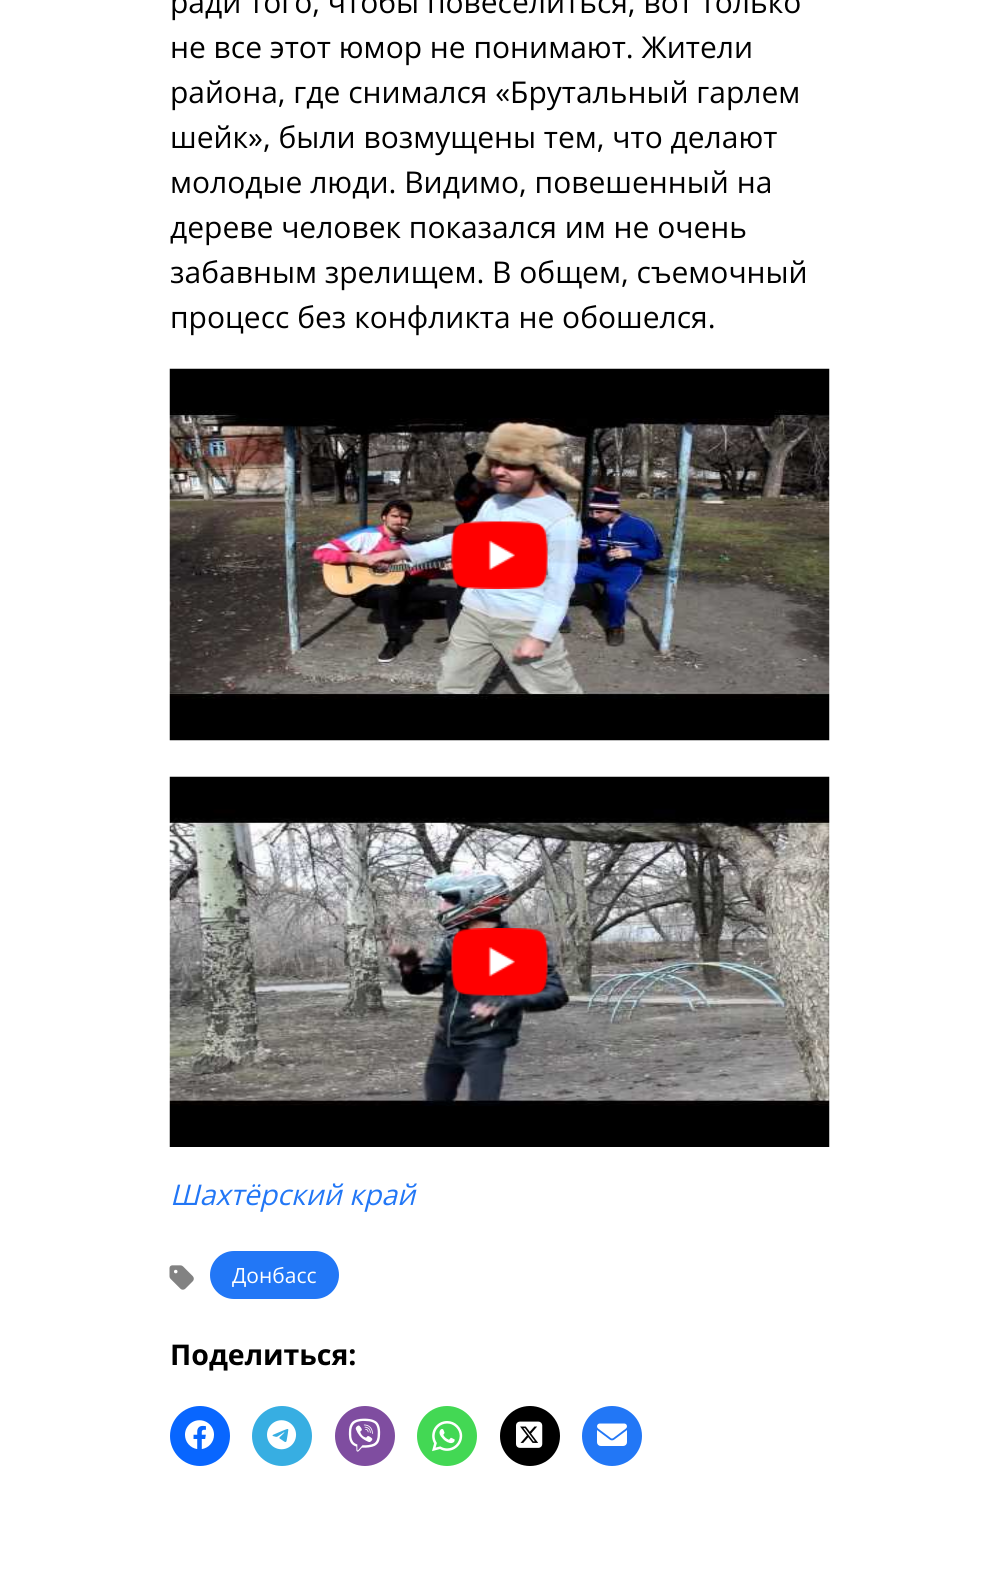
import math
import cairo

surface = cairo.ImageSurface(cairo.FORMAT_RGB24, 999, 1586)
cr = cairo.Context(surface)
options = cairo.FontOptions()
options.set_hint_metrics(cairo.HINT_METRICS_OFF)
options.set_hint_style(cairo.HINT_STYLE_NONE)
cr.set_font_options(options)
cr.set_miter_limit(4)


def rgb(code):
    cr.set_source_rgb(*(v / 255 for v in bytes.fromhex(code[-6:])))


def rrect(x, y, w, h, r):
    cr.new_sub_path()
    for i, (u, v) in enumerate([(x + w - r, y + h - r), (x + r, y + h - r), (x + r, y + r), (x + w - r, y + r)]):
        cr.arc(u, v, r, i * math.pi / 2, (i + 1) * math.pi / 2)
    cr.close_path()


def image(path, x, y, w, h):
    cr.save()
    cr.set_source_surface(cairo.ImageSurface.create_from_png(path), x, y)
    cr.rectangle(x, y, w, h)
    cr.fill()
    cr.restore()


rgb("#ffffff")
cr.paint()
image("img/1.png", 169, 368, 661, 373)
image("img/2.png", 451, 521, 97, 68)
image("img/3.png", 169, 776, 661, 371)
image("img/4.png", 451, 928, 97, 68)
image("img/5.png", 169, 1265, 25, 25)
rgb("#2277f6")
rrect(210, 1251, 129, 48, 24)
cr.fill()
rgb("#0866ff")
cr.arc(200, 1436, 30, 0, 2 * math.pi)
cr.fill()
image("img/6.png", 185, 1420, 29, 29)
rgb("#37aee2")
cr.arc(282, 1436, 30, 0, 2 * math.pi)
cr.fill()
image("img/7.png", 267, 1420, 30, 30)
rgb("#7f4da0")
cr.arc(365, 1436, 30, 0, 2 * math.pi)
cr.fill()
image("img/8.png", 348, 1418, 33, 34)
rgb("#43d854")
cr.arc(447, 1436, 30, 0, 2 * math.pi)
cr.fill()
image("img/9.png", 432, 1421, 31, 31)
rgb("#000000")
cr.arc(530, 1436, 30, 0, 2 * math.pi)
cr.fill()
image("img/10.png", 516, 1421, 27, 27)
rgb("#2277f6")
cr.arc(612, 1436, 30, 0, 2 * math.pi)
cr.fill()
image("img/11.png", 597, 1423, 30, 23)
cr.select_font_face("Open Sans")
cr.set_font_size(30)
rgb("#000000")
for x, y, s in [
    (170, 13, "ради того, чтобы повеселиться, вот только"),
    (170, 58, "не все этот юмор не понимают. Жители"),
    (170, 103, "района, где снимался «Брутальный гарлем"),
    (170, 148, "шейк», были возмущены тем, что делают"),
    (170, 193, "молодые люди. Видимо, повешенный на"),
    (170, 238, "дереве человек показался им не очень"),
    (170, 283, "забавным зрелищем. В общем, съемочный"),
    (170, 328, "процесс без конфликта не обошелся."),
]:
    cr.move_to(x, y)
    cr.show_text(s)
cr.select_font_face("Open Sans", cairo.FONT_SLANT_ITALIC)
cr.set_font_size(28.5)
rgb("#2277f6")
cr.move_to(170, 1205)
cr.show_text("Шахтёрский край")
cr.select_font_face("Open Sans")
cr.set_font_size(21)
rgb("#ffffff")
cr.move_to(232, 1283)
cr.show_text("Донбасс")
cr.select_font_face("Open Sans", cairo.FONT_SLANT_NORMAL, cairo.FONT_WEIGHT_BOLD)
cr.set_font_size(28.5)
rgb("#000000")
cr.move_to(170, 1365)
cr.show_text("Поделиться:")
surface.write_to_png("page.png")
